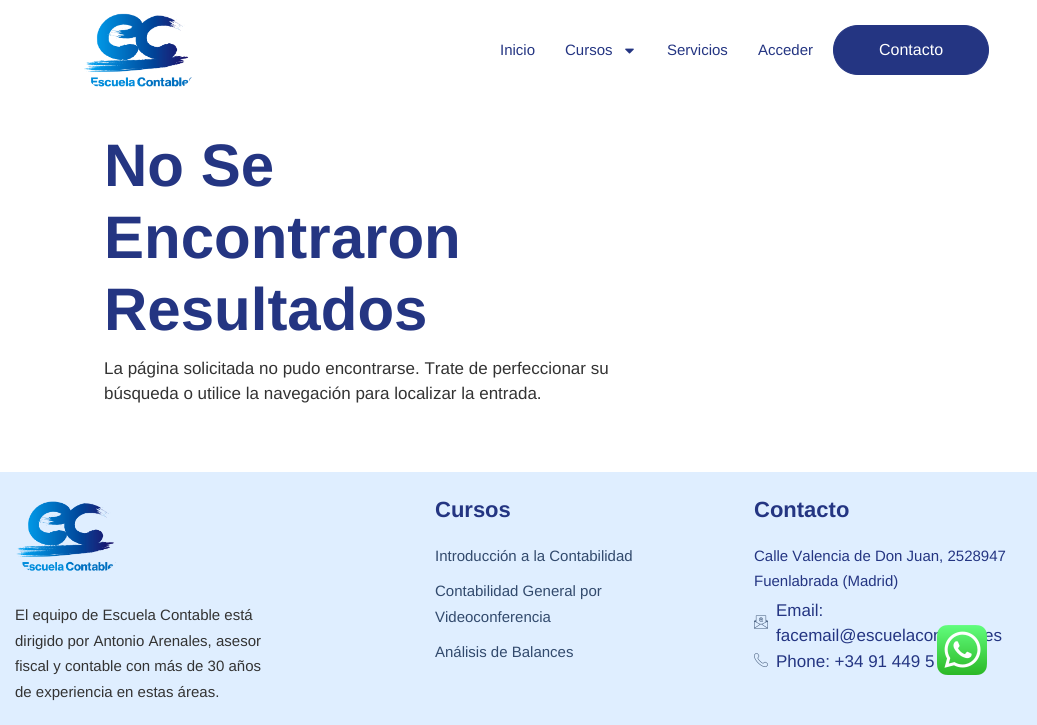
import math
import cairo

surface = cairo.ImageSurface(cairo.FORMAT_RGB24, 1037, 725)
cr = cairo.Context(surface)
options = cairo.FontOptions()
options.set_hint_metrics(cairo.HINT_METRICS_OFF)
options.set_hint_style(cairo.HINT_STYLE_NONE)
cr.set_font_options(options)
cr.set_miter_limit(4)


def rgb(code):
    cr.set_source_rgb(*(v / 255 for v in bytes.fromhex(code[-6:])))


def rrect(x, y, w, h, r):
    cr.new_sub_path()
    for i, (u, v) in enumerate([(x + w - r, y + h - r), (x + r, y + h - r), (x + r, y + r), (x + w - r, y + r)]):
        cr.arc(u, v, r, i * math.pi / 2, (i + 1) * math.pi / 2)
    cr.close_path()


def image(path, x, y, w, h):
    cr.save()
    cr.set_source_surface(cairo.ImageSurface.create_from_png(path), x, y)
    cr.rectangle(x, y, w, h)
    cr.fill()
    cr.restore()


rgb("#ffffff")
cr.paint()
image("img/1.png", 84, 13, 108, 74)
image("img/2.png", 625, 48, 9, 6)
rgb("#243582")
rrect(833.5, 25.5, 155, 49, 24.5)
cr.fill_preserve()
cr.set_line_width(1)
cr.stroke()
rgb("#dfeeff")
cr.rectangle(0, 472, 1037, 253)
cr.fill()
image("img/3.png", 16, 501, 100, 70)
image("img/4.png", 754, 615, 14, 14)
image("img/5.png", 754, 653, 14, 15)
cr.select_font_face("Liberation Sans")
cr.set_font_size(15)
rgb("#243582")
for x, y, s in [
    (500, 55, "Inicio"),
    (565, 55, "Cursos"),
    (667, 55, "Servicios"),
    (758, 55, "Acceder"),
]:
    cr.move_to(x, y)
    cr.show_text(s)
cr.set_font_size(16)
rgb("#ffffff")
cr.move_to(879, 55)
cr.show_text("Contacto")
cr.select_font_face("Liberation Sans", cairo.FONT_SLANT_NORMAL, cairo.FONT_WEIGHT_BOLD)
cr.set_font_size(60)
rgb("#243582")
for x, y, s in [
    (104, 186, "No Se"),
    (104, 258, "Encontraron"),
    (104, 330, "Resultados"),
]:
    cr.move_to(x, y)
    cr.show_text(s)
cr.select_font_face("Liberation Sans")
cr.set_font_size(17)
rgb("#333333")
cr.move_to(104, 374)
cr.show_text("La página solicitada no pudo encontrarse. Trate de perfeccionar su")
cr.move_to(104, 399)
cr.show_text("búsqueda o utilice la navegación para localizar la entrada.")
cr.set_font_size(15)
for x, y, s in [
    (15, 620, "El equipo de Escuela Contable está"),
    (15, 646, "dirigido por Antonio Arenales, asesor"),
    (15, 671, "fiscal y contable con más de 30 años"),
    (15, 697, "de experiencia en estas áreas."),
]:
    cr.move_to(x, y)
    cr.show_text(s)
cr.select_font_face("Liberation Sans", cairo.FONT_SLANT_NORMAL, cairo.FONT_WEIGHT_BOLD)
cr.set_font_size(22)
rgb("#243582")
cr.move_to(435, 517)
cr.show_text("Cursos")
cr.select_font_face("Liberation Sans")
cr.set_font_size(15)
rgb("#324a6d")
for x, y, s in [
    (435, 561, "Introducción a la Contabilidad"),
    (435, 596, "Contabilidad General por"),
    (435, 622, "Videoconferencia"),
    (435, 657, "Análisis de Balances"),
]:
    cr.move_to(x, y)
    cr.show_text(s)
cr.select_font_face("Liberation Sans", cairo.FONT_SLANT_NORMAL, cairo.FONT_WEIGHT_BOLD)
cr.set_font_size(22)
rgb("#243582")
cr.move_to(754, 517)
cr.show_text("Contacto")
cr.select_font_face("Liberation Sans")
cr.set_font_size(15)
cr.move_to(754, 561)
cr.show_text("Calle Valencia de Don Juan, 2528947")
cr.move_to(754, 586)
cr.show_text("Fuenlabrada (Madrid)")
cr.set_font_size(17)
for x, y, s in [
    (776, 616, "Email:"),
    (776, 641, "facemail@escuelacon"),
    (984, 641, "es"),
    (776, 667, "Phone: +34 91 449 5"),
]:
    cr.move_to(x, y)
    cr.show_text(s)
image("img/6.png", 937, 625, 50, 50)
surface.write_to_png("page.png")
